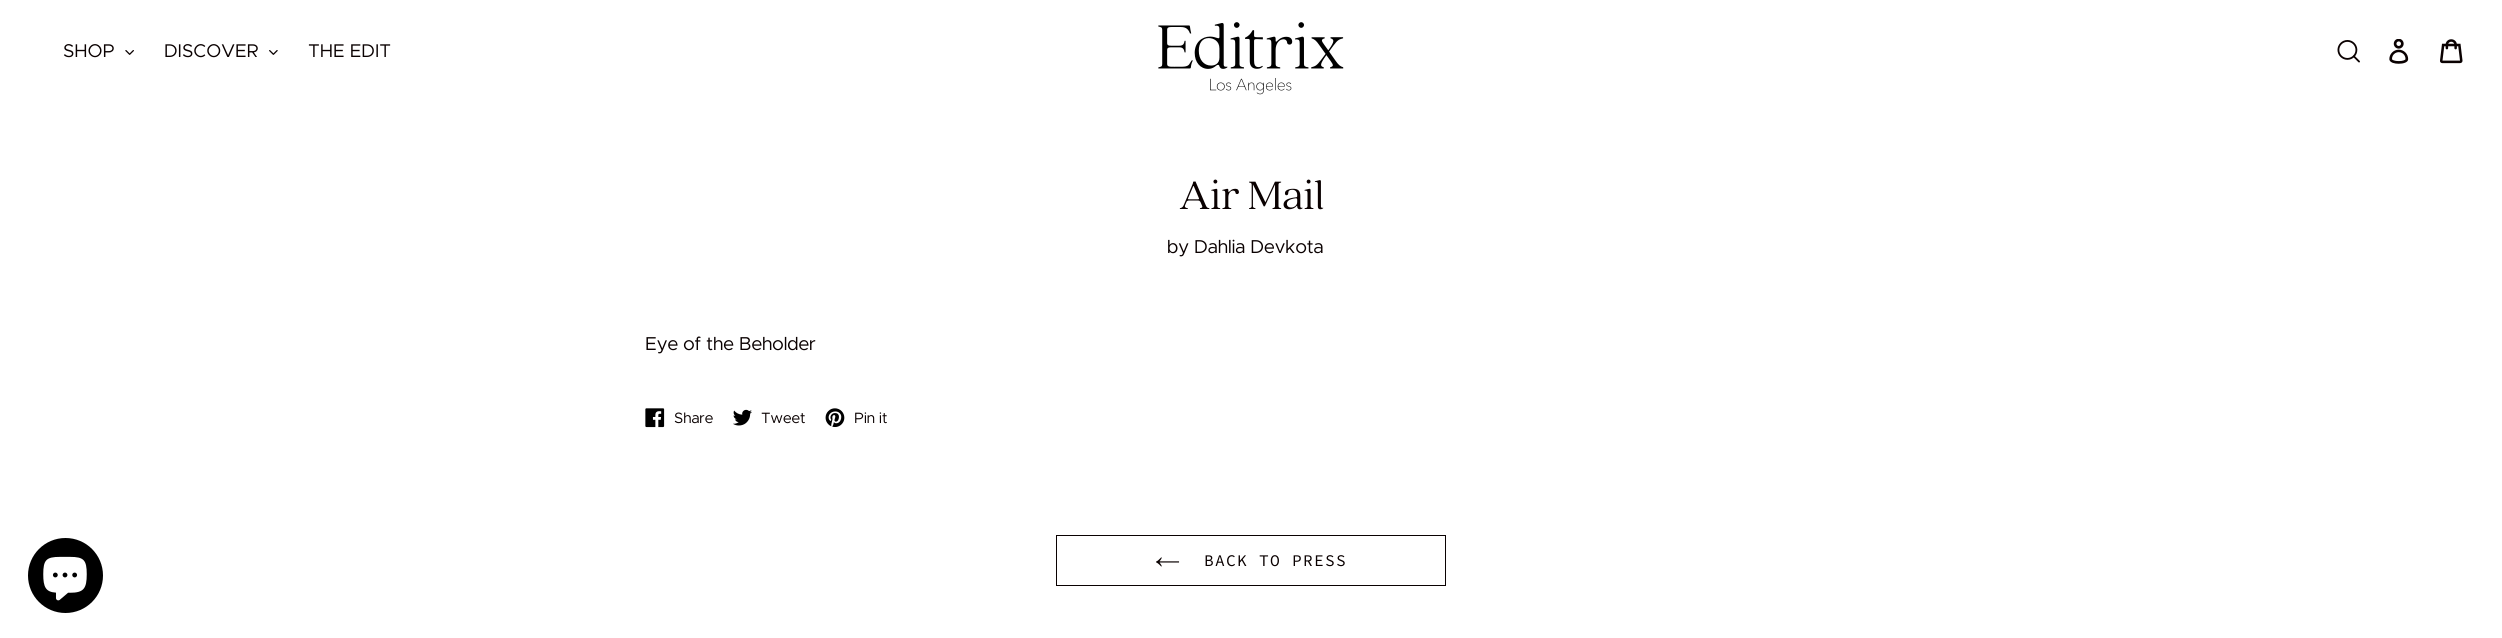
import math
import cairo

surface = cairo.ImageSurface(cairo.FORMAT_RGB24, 2502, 638)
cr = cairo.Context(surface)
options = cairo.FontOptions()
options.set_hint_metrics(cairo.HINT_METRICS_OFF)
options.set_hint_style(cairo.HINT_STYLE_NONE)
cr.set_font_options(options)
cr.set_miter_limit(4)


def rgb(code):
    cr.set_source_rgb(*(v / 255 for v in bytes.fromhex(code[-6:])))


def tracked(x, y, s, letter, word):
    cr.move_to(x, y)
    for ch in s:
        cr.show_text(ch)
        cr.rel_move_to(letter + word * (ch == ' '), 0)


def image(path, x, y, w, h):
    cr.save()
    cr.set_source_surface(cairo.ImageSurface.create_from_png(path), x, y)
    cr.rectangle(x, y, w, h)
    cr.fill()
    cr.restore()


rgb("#ffffff")
cr.paint()
image("img/1.png", 125, 50, 9, 5)
image("img/2.png", 269, 50, 9, 5)
image("img/3.png", 1158, 22, 186, 73)
image("img/4.png", 2337, 40, 23, 23)
image("img/5.png", 2389, 39, 20, 25)
image("img/6.png", 2440, 39, 23, 25)
image("img/7.png", 645, 408, 20, 20)
image("img/8.png", 733, 409, 19, 17)
image("img/9.png", 825, 408, 20, 19)
cr.rectangle(1056.5, 535.5, 389, 50)
rgb("#0a0101")
cr.set_line_width(1)
cr.stroke()
image("img/10.png", 1156, 557, 24, 10)
rgb("#000000")
cr.arc(65.5, 575.5, 37.5, 0, 2 * math.pi)
cr.fill()
image("img/11.png", 43, 556, 44, 45)
cr.select_font_face("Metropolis")
cr.set_font_size(18.5)
rgb("#0a0101")
for x, y, s in [
    (63, 57, "SHOP"),
    (164, 57, "DISCOVER"),
    (308, 57, "THE EDIT"),
]:
    cr.move_to(x, y)
    cr.show_text(s)
cr.select_font_face("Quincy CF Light")
cr.set_font_size(44)
cr.move_to(1179, 209)
cr.show_text("Air Mail")
cr.select_font_face("Metropolis")
cr.set_font_size(18.75)
cr.move_to(1167, 253)
cr.show_text("by Dahlia Devkota")
cr.move_to(645, 350)
cr.show_text("Eye of the Beholder")
cr.set_font_size(15)
for x, y, s in [
    (674, 423, "Share"),
    (761, 423, "Tweet"),
    (854, 423, "Pin it"),
]:
    cr.move_to(x, y)
    cr.show_text(s)
cr.select_font_face("Source Code Pro")
cr.set_font_size(16.25)
tracked(1204, 566, "BACK TO PRESS", 1.25, 0)
surface.write_to_png("page.png")
